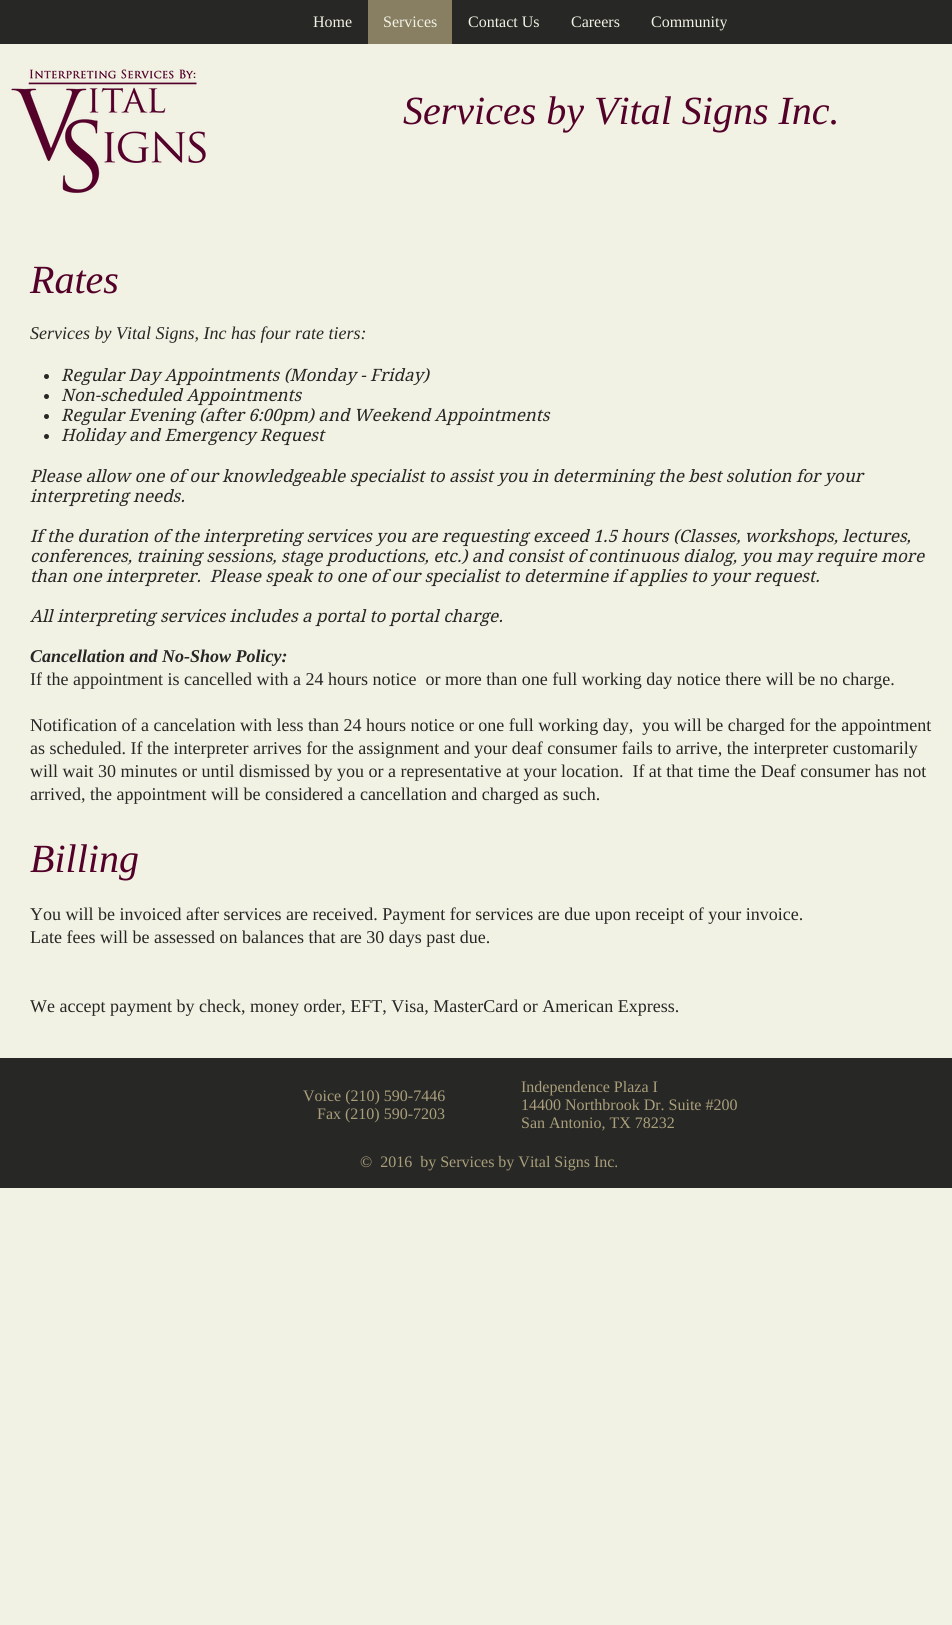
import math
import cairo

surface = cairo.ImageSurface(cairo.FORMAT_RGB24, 952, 1625)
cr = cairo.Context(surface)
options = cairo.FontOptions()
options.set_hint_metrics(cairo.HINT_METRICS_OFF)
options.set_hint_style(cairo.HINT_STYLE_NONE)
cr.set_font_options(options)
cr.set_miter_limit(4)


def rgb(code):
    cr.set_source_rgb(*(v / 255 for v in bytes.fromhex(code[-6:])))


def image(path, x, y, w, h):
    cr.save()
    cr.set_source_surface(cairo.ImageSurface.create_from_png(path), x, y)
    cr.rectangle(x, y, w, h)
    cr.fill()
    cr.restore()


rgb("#f1f1e4")
cr.paint()
rgb("#272725")
cr.rectangle(0, 0, 952, 44)
cr.fill()
rgb("#887f63")
cr.rectangle(368, 0, 84, 44)
cr.fill()
image("img/1.png", 11, 69, 195, 124)
rgb("#272725")
cr.arc(46.5, 376.5, 2.5, 0, 2 * math.pi)
cr.fill()
cr.arc(46.5, 396.5, 2.5, 0, 2 * math.pi)
cr.fill()
cr.arc(46.5, 416.5, 2.5, 0, 2 * math.pi)
cr.fill()
cr.arc(46.5, 436.5, 2.5, 0, 2 * math.pi)
cr.fill()
cr.rectangle(0, 1058, 952, 130)
cr.fill()
cr.select_font_face("Liberation Serif")
cr.set_font_size(16)
rgb("#f1f1e4")
for x, y, s in [
    (313, 27, "Home"),
    (383, 27, "Services"),
    (468, 27, "Contact Us"),
    (571, 27, "Careers"),
    (651, 27, "Community"),
]:
    cr.move_to(x, y)
    cr.show_text(s)
cr.select_font_face("Liberation Serif", cairo.FONT_SLANT_ITALIC)
cr.set_font_size(40)
rgb("#540129")
cr.move_to(403, 124)
cr.show_text("Services by Vital Signs Inc.")
cr.move_to(30, 293)
cr.show_text("Rates")
cr.set_font_size(18)
rgb("#272725")
cr.move_to(30, 339)
cr.show_text("Services by Vital Signs, Inc has four rate tiers:")
cr.select_font_face("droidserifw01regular", cairo.FONT_SLANT_ITALIC)
cr.set_font_size(17)
for x, y, s in [
    (61, 381, "Regular Day Appointments (Monday - Friday)"),
    (61, 401, "Non-scheduled Appointments"),
    (61, 421, "Regular Evening (after 6:00pm) and Weekend Appointments"),
    (61, 441, "Holiday and Emergency Request"),
    (30, 482, "Please allow one of our knowledgeable specialist to assist you in determining the best solution for your"),
    (30, 502, "interpreting needs."),
    (30, 542, "If the duration of the interpreting services you are requesting exceed 1.5 hours (Classes, workshops, lectures,"),
    (30, 562, "conferences, training sessions, stage productions, etc.) and consist of continuous dialog, you may require more"),
    (30, 582, "than one interpreter.  Please speak to one of our specialist to determine if applies to your request."),
    (30, 622, "All interpreting services includes a portal to portal charge."),
]:
    cr.move_to(x, y)
    cr.show_text(s)
cr.select_font_face("Liberation Serif", cairo.FONT_SLANT_ITALIC, cairo.FONT_WEIGHT_BOLD)
cr.set_font_size(18)
cr.move_to(30, 662)
cr.show_text("Cancellation and No-Show Policy:")
cr.select_font_face("Liberation Serif")
for x, y, s in [
    (30, 685, "If the appointment is cancelled with a 24 hours notice  or more than one full working day notice there will be no charge."),
    (30, 731, "Notification of a cancelation with less than 24 hours notice or one full working day,  you will be charged for the appointment"),
    (30, 754, "as scheduled. If the interpreter arrives for the assignment and your deaf consumer fails to arrive, the interpreter customarily"),
    (30, 777, "will wait 30 minutes or until dismissed by you or a representative at your location.  If at that time the Deaf consumer has not"),
    (30, 800, "arrived, the appointment will be considered a cancellation and charged as such."),
]:
    cr.move_to(x, y)
    cr.show_text(s)
cr.select_font_face("Liberation Serif", cairo.FONT_SLANT_ITALIC)
cr.set_font_size(40)
rgb("#540129")
cr.move_to(30, 872)
cr.show_text("Billing")
cr.select_font_face("Liberation Serif")
cr.set_font_size(18)
rgb("#272725")
for x, y, s in [
    (30, 920, "You will be invoiced after services are received. Payment for services are due upon receipt of your invoice."),
    (30, 943, "Late fees will be assessed on balances that are 30 days past due."),
    (30, 1012, "We accept payment by check, money order, EFT, Visa, MasterCard or American Express."),
]:
    cr.move_to(x, y)
    cr.show_text(s)
cr.set_font_size(16)
rgb("#aa9f7b")
for x, y, s in [
    (303, 1101, "Voice (210) 590-7446"),
    (317, 1119, "Fax (210) 590-7203"),
    (521, 1092, "Independence Plaza I"),
    (521, 1110, "14400 Northbrook Dr. Suite #200"),
    (521, 1128, "San Antonio, TX 78232"),
    (360, 1167, "©  2016  by Services by Vital Signs Inc."),
]:
    cr.move_to(x, y)
    cr.show_text(s)
surface.write_to_png("page.png")
